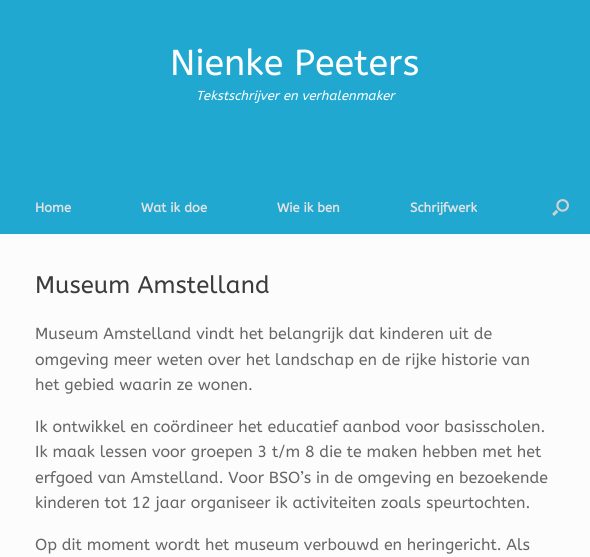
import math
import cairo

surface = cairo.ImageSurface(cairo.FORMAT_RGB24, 590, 557)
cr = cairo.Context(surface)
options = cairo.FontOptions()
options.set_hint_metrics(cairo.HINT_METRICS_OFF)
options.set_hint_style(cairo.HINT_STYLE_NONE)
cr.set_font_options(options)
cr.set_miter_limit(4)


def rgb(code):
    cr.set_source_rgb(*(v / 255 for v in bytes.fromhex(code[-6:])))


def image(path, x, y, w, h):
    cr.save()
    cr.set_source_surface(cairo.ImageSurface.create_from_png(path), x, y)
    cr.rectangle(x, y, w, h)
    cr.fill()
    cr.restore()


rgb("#21a8d1")
cr.paint()
image("img/1.png", 552, 199, 17, 17)
rgb("#fcfcfc")
cr.rectangle(0, 234, 590, 323)
cr.fill()
cr.select_font_face("ABeeZee")
cr.set_font_size(36)
rgb("#ffffff")
cr.move_to(170, 75)
cr.show_text("Nienke Peeters")
cr.select_font_face("ABeeZee", cairo.FONT_SLANT_ITALIC)
cr.set_font_size(13)
cr.move_to(196, 100)
cr.show_text("Tekstschrijver en verhalenmaker")
cr.select_font_face("ABeeZee", cairo.FONT_SLANT_NORMAL, cairo.FONT_WEIGHT_BOLD)
rgb("#e2e2e2")
for x, y, s in [
    (35, 212, "Home"),
    (141, 212, "Wat ik doe"),
    (277, 212, "Wie ik ben"),
    (410, 212, "Schrijfwerk"),
]:
    cr.move_to(x, y)
    cr.show_text(s)
cr.select_font_face("ABeeZee")
cr.set_font_size(24)
rgb("#3b3b3b")
cr.move_to(35, 293)
cr.show_text("Museum Amstelland")
cr.set_font_size(16)
rgb("#666666")
for x, y, s in [
    (35, 339, "Museum Amstelland vindt het belangrijk dat kinderen uit de"),
    (35, 365, "omgeving meer weten over het landschap en de rijke historie van"),
    (35, 390, "het gebied waarin ze wonen."),
    (35, 432, "Ik ontwikkel en coördineer het educatief aanbod voor basisscholen."),
    (35, 457, "Ik maak lessen voor groepen 3 t/m 8 die te maken hebben met het"),
    (35, 483, "erfgoed van Amstelland. Voor BSO’s in de omgeving en bezoekende"),
    (35, 508, "kinderen tot 12 jaar organiseer ik activiteiten zoals speurtochten."),
    (35, 550, "Op dit moment wordt het museum verbouwd en heringericht. Als"),
]:
    cr.move_to(x, y)
    cr.show_text(s)
surface.write_to_png("page.png")
